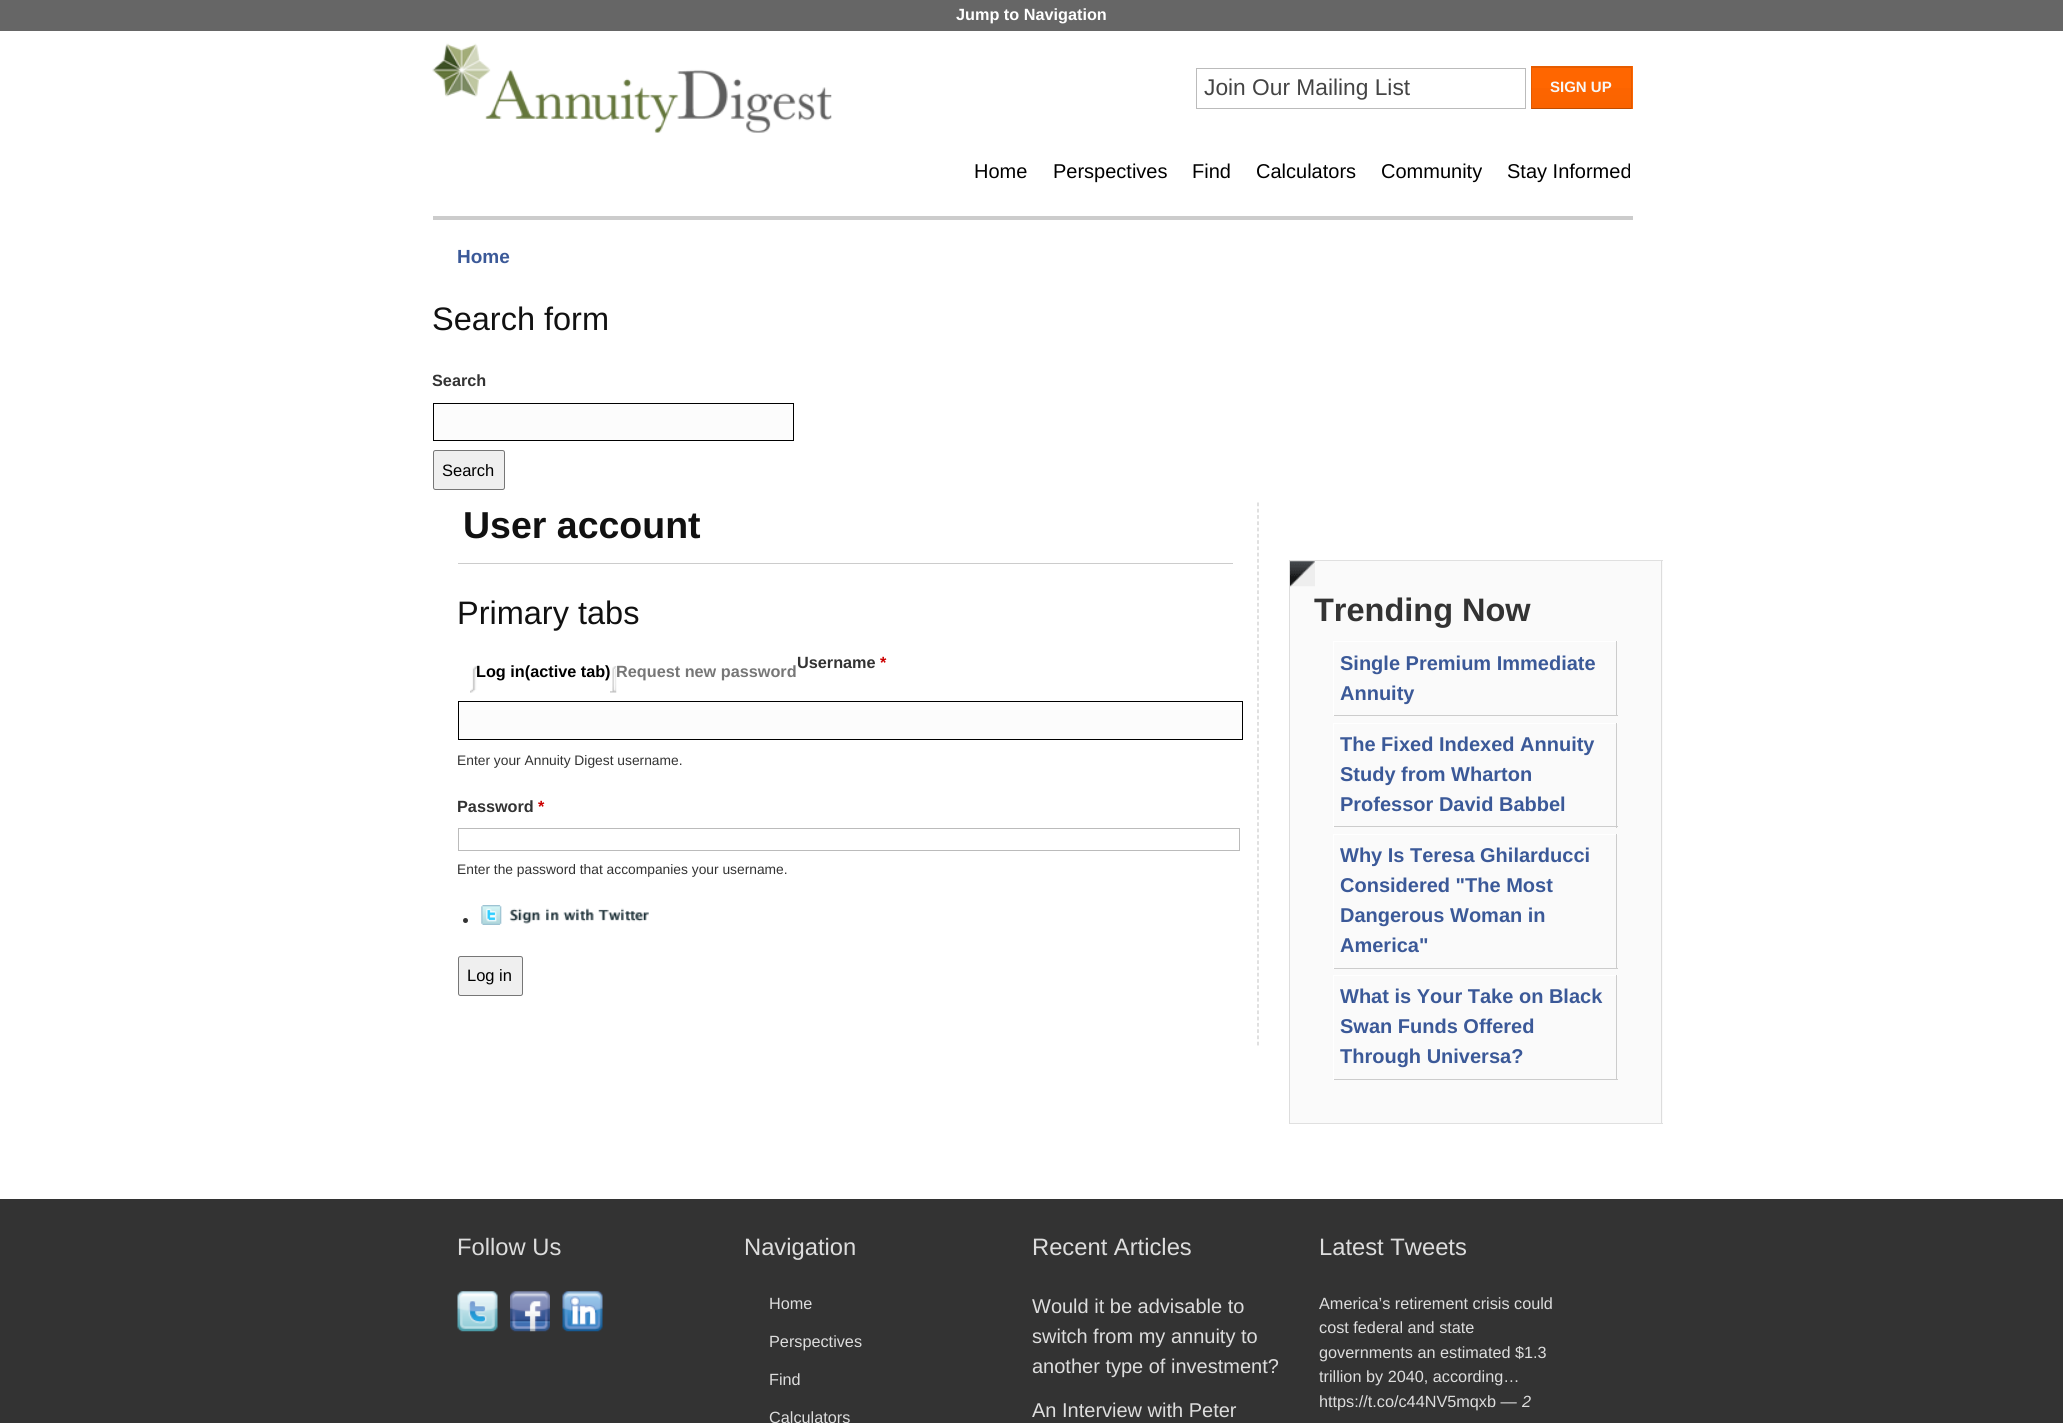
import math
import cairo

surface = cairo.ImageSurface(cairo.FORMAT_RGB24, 2063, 1423)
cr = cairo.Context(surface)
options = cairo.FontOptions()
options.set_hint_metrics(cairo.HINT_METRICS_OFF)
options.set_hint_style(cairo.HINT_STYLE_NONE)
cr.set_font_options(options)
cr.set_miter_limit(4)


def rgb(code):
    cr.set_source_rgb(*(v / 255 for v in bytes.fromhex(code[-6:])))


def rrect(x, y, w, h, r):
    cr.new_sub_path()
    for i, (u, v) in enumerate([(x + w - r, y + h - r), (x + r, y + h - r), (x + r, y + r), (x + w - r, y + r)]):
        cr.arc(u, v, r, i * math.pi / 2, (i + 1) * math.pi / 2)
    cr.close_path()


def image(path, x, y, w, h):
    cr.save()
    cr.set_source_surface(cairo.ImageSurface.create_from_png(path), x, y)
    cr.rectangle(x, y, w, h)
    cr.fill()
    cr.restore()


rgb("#ffffff")
cr.paint()
rgb("#666666")
cr.rectangle(0, 0, 2063, 31)
cr.fill()
rgb("#cccccc")
cr.rectangle(433, 216, 1200, 4)
cr.fill()
image("img/1.png", 432, 43, 400, 90)
cr.rectangle(1196.5, 68.5, 329, 40)
rgb("#bbbbbb")
cr.set_line_width(1)
cr.stroke()
rgb("#ff6600")
cr.rectangle(1531, 66, 102, 43)
cr.fill()
gradient = cairo.LinearGradient(1582, 68, 1582, 108)
gradient.add_color_stop_rgba(0, 1, 0.4, 0, 1)
gradient.add_color_stop_rgba(1, 0.98, 0.388, 0, 1)
cr.set_source(gradient)
cr.rectangle(1531, 88, 102, 20)
cr.fill()
rgb("#e65c00")
cr.new_path()
cr.move_to(1531, 66)
cr.line_to(1632, 66)
cr.line_to(1631, 68)
cr.line_to(1532, 68)
cr.close_path()
cr.fill()
cr.set_source_rgba(0, 0, 0, 0.1)
cr.new_path()
cr.move_to(1632, 66)
cr.line_to(1632, 109)
cr.line_to(1631, 108)
cr.line_to(1631, 68)
cr.close_path()
cr.fill()
cr.set_source_rgba(0, 0, 0, 0.25)
cr.new_path()
cr.move_to(1632, 109)
cr.line_to(1531, 109)
cr.line_to(1532, 108)
cr.line_to(1631, 108)
cr.close_path()
cr.fill()
cr.set_source_rgba(0, 0, 0, 0.1)
cr.new_path()
cr.move_to(1531, 109)
cr.line_to(1531, 66)
cr.line_to(1532, 68)
cr.line_to(1532, 108)
cr.close_path()
cr.fill()
rgb("#fcfcfc")
cr.rectangle(433.5, 403.5, 360, 37)
cr.fill_preserve()
rgb("#000000")
cr.stroke()
rgb("#efefef")
rrect(433.5, 450.5, 71, 39, 2)
cr.fill_preserve()
rgb("#767676")
cr.stroke()
cr.new_path()
cr.move_to(1258, 502.5)
cr.line_to(1258, 1046)
rgb("#cccccc")
cr.set_line_width(1.2)
cr.set_dash([3.75, 2.52])
cr.stroke()
cr.rectangle(458, 563, 775, 1)
cr.fill()
image("img/2.png", 470, 666, 8, 27)
image("img/3.png", 610, 666, 7, 27)
rgb("#fcfcfc")
cr.rectangle(458.5, 701.5, 784, 38)
cr.fill_preserve()
rgb("#000000")
cr.set_line_width(1)
cr.set_dash([])
cr.stroke()
cr.rectangle(458.5, 828.5, 781, 22)
rgb("#bbbbbb")
cr.stroke()
rgb("#333333")
cr.arc(465.5, 920.5, 2.5, 0, 2 * math.pi)
cr.fill()
image("img/4.png", 481, 905, 168, 20)
rgb("#efefef")
rrect(458.5, 956.5, 64, 39, 2)
cr.fill_preserve()
rgb("#767676")
cr.stroke()
rgb("#fafafa")
cr.rectangle(1290, 561, 373, 562)
cr.fill()
image("img/5.png", 1290, 561, 25, 26)
for x, y, w, h, color in [
    (1289, 560, 374, 1, "#e0e0e0"),
    (1661, 560, 1, 564, "#dddddd"),
    (1289, 1123, 374, 1, "#e0e0e0"),
    (1289, 560, 1, 564, "#dddddd"),
    (1333, 641, 285, 1, "#ffffff"),
    (1616, 641, 1, 75, "#cccccc"),
    (1333, 715, 285, 1, "#cccccc"),
    (1333, 641, 1, 75, "#ffffff"),
    (1333, 723, 285, 1, "#ffffff"),
    (1616, 723, 1, 105, "#cccccc"),
    (1333, 826, 285, 1, "#cccccc"),
    (1333, 723, 1, 105, "#ffffff"),
    (1333, 834, 285, 1, "#ffffff"),
    (1616, 834, 1, 135, "#cccccc"),
    (1333, 968, 285, 1, "#cccccc"),
    (1333, 834, 1, 135, "#ffffff"),
    (1333, 975, 285, 1, "#ffffff"),
    (1616, 975, 1, 105, "#cccccc"),
    (1333, 1079, 285, 1, "#cccccc"),
    (1333, 975, 1, 105, "#ffffff"),
    (0, 1199, 2063, 224, "#333333"),
]:
    rgb(color)
    cr.rectangle(x, y, w, h)
    cr.fill()
image("img/6.png", 457, 1291, 41, 41)
image("img/7.png", 510, 1291, 40, 41)
image("img/8.png", 562, 1291, 41, 41)
cr.select_font_face("Liberation Sans", cairo.FONT_SLANT_NORMAL, cairo.FONT_WEIGHT_BOLD)
cr.set_font_size(16.25)
rgb("#ffffff")
cr.move_to(956, 20)
cr.show_text("Jump to Navigation")
cr.select_font_face("Liberation Sans")
cr.set_font_size(22.75)
rgb("#444444")
cr.move_to(1204, 95)
cr.show_text("Join Our Mailing List")
cr.select_font_face("Liberation Sans", cairo.FONT_SLANT_NORMAL, cairo.FONT_WEIGHT_BOLD)
cr.set_font_size(15)
rgb("#f7f7f7")
cr.move_to(1550, 92)
cr.show_text("SIGN UP")
cr.select_font_face("Liberation Sans")
cr.set_font_size(20)
rgb("#000000")
for x, y, s in [
    (974, 178, "Home"),
    (1053, 178, "Perspectives"),
    (1192, 178, "Find"),
    (1256, 178, "Calculators"),
    (1381, 178, "Community"),
    (1507, 178, "Stay Informed"),
]:
    cr.move_to(x, y)
    cr.show_text(s)
cr.select_font_face("Liberation Sans", cairo.FONT_SLANT_NORMAL, cairo.FONT_WEIGHT_BOLD)
cr.set_font_size(19)
rgb("#3b5998")
cr.move_to(457, 263)
cr.show_text("Home")
cr.select_font_face("Liberation Sans")
cr.set_font_size(32.5)
rgb("#111111")
cr.move_to(432, 330)
cr.show_text("Search form")
cr.select_font_face("Liberation Sans", cairo.FONT_SLANT_NORMAL, cairo.FONT_WEIGHT_BOLD)
cr.set_font_size(16.25)
rgb("#333333")
cr.move_to(432, 386)
cr.show_text("Search")
cr.select_font_face("Liberation Sans")
cr.set_font_size(16.5)
rgb("#000000")
cr.move_to(442, 476)
cr.show_text("Search")
cr.select_font_face("Liberation Sans", cairo.FONT_SLANT_NORMAL, cairo.FONT_WEIGHT_BOLD)
cr.set_font_size(37.5)
rgb("#111111")
cr.move_to(463, 538)
cr.show_text("User account")
cr.select_font_face("Liberation Sans")
cr.set_font_size(32.5)
cr.move_to(457, 624)
cr.show_text("Primary tabs")
cr.select_font_face("Liberation Sans", cairo.FONT_SLANT_NORMAL, cairo.FONT_WEIGHT_BOLD)
cr.set_font_size(16.25)
rgb("#000000")
cr.move_to(476, 677)
cr.show_text("Log in(active tab)")
rgb("#777777")
cr.move_to(616, 677)
cr.show_text("Request new password")
rgb("#333333")
cr.move_to(797, 668)
cr.show_text("Username")
rgb("#cc0000")
cr.move_to(880, 668)
cr.show_text("*")
cr.select_font_face("Liberation Sans")
cr.set_font_size(13.8)
rgb("#333333")
cr.move_to(457, 765)
cr.show_text("Enter your Annuity Digest username.")
cr.select_font_face("Liberation Sans", cairo.FONT_SLANT_NORMAL, cairo.FONT_WEIGHT_BOLD)
cr.set_font_size(16.25)
cr.move_to(457, 812)
cr.show_text("Password")
rgb("#cc0000")
cr.move_to(538, 812)
cr.show_text("*")
cr.select_font_face("Liberation Sans")
cr.set_font_size(13.8)
rgb("#333333")
cr.move_to(457, 874)
cr.show_text("Enter the password that accompanies your username.")
cr.set_font_size(16.5)
rgb("#000000")
cr.move_to(467, 981)
cr.show_text("Log in")
cr.select_font_face("Liberation Sans", cairo.FONT_SLANT_NORMAL, cairo.FONT_WEIGHT_BOLD)
cr.set_font_size(32.5)
rgb("#333333")
cr.move_to(1314, 621)
cr.show_text("Trending Now")
cr.set_font_size(20)
rgb("#3b5998")
for x, y, s in [
    (1340, 670, "Single Premium Immediate"),
    (1340, 700, "Annuity"),
    (1340, 751, "The Fixed Indexed Annuity"),
    (1340, 781, "Study from Wharton"),
    (1340, 811, "Professor David Babbel"),
    (1340, 862, "Why Is Teresa Ghilarducci"),
    (1340, 892, "Considered \"The Most"),
    (1340, 922, "Dangerous Woman in"),
    (1340, 952, "America\""),
    (1340, 1003, "What is Your Take on Black"),
    (1340, 1033, "Swan Funds Offered"),
    (1340, 1063, "Through Universa?"),
]:
    cr.move_to(x, y)
    cr.show_text(s)
cr.select_font_face("Liberation Sans")
cr.set_font_size(23.75)
rgb("#dddddd")
cr.move_to(457, 1255)
cr.show_text("Follow Us")
cr.move_to(744, 1255)
cr.show_text("Navigation")
cr.set_font_size(16.25)
for x, y, s in [
    (769, 1309, "Home"),
    (769, 1347, "Perspectives"),
    (769, 1385, "Find"),
    (769, 1423, "Calculators"),
]:
    cr.move_to(x, y)
    cr.show_text(s)
cr.set_font_size(23.75)
cr.move_to(1032, 1255)
cr.show_text("Recent Articles")
cr.set_font_size(20)
for x, y, s in [
    (1032, 1313, "Would it be advisable to"),
    (1032, 1343, "switch from my annuity to"),
    (1032, 1373, "another type of investment?"),
    (1032, 1417, "An Interview with Peter"),
]:
    cr.move_to(x, y)
    cr.show_text(s)
cr.set_font_size(23.75)
cr.move_to(1319, 1255)
cr.show_text("Latest Tweets")
cr.set_font_size(16.25)
for x, y, s in [
    (1319, 1309, "America’s retirement crisis could"),
    (1319, 1333, "cost federal and state"),
    (1319, 1358, "governments an estimated $1.3"),
    (1319, 1382, "trillion by 2040, according…"),
    (1319, 1407, "https://t.co/c44NV5mqxb —"),
]:
    cr.move_to(x, y)
    cr.show_text(s)
cr.select_font_face("Liberation Sans", cairo.FONT_SLANT_ITALIC)
cr.move_to(1522, 1407)
cr.show_text("2")
surface.write_to_png("page.png")
